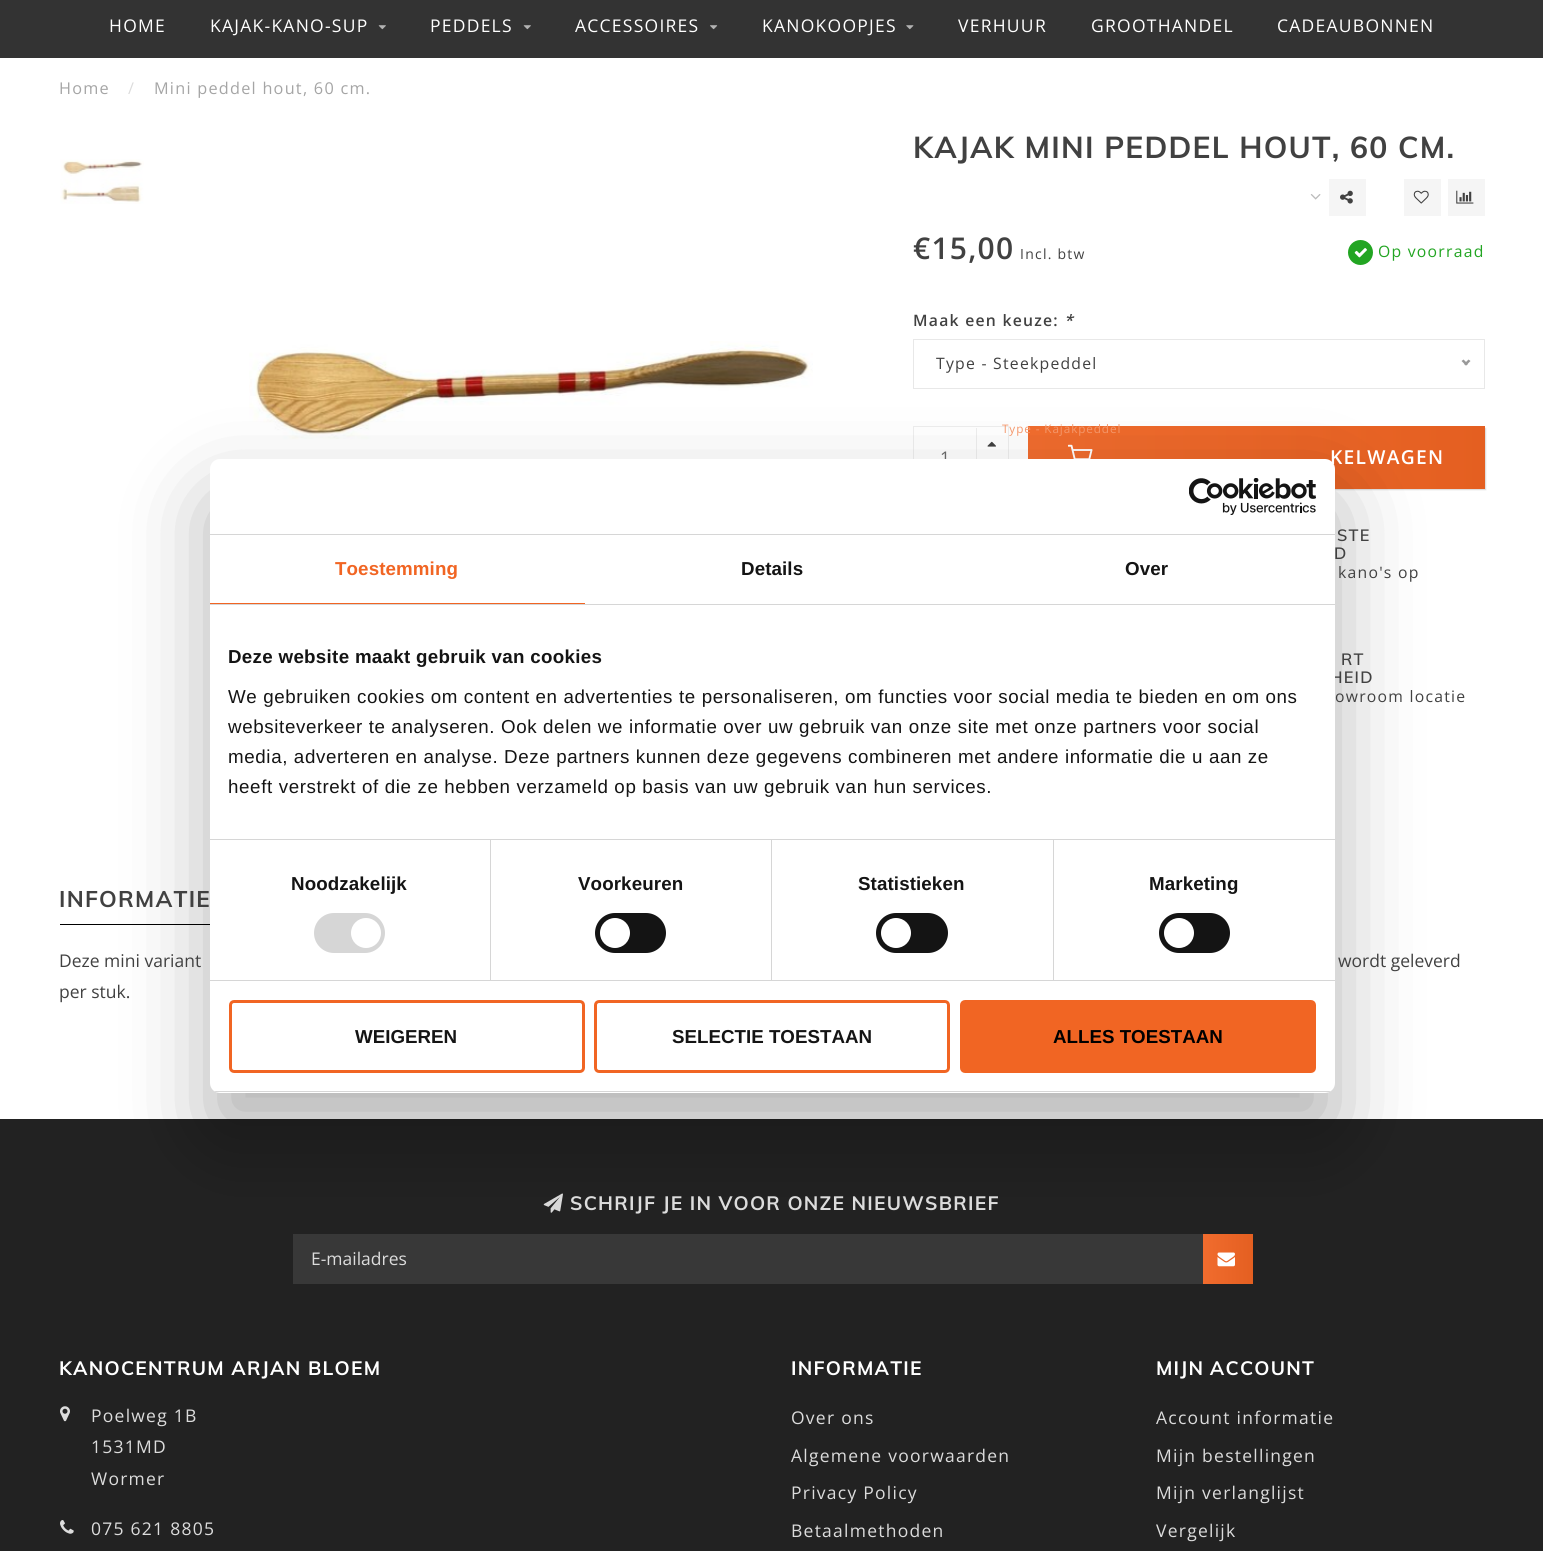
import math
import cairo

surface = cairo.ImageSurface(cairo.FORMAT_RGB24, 1543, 1551)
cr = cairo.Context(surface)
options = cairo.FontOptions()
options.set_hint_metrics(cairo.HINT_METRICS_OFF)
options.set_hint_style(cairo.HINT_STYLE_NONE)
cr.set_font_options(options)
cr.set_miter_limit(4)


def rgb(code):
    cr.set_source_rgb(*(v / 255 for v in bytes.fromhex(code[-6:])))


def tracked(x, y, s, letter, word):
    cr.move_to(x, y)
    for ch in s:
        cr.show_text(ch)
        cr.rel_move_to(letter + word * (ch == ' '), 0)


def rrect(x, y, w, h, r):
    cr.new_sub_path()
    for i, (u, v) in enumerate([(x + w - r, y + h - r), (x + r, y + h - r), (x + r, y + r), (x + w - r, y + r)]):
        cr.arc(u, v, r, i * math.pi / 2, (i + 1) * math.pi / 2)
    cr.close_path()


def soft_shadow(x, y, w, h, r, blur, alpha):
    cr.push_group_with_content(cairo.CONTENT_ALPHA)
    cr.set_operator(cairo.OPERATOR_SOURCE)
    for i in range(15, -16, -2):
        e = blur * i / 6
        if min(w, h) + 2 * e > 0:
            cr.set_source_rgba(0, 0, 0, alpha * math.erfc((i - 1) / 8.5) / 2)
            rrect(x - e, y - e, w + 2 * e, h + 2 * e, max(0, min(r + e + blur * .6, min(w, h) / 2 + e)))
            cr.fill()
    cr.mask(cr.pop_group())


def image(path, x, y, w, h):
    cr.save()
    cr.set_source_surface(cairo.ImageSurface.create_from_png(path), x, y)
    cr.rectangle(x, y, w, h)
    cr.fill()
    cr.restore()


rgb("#ffffff")
cr.paint()
rgb("#333333")
cr.rectangle(0, 0, 1543, 58)
cr.fill()
image("img/1.png", 378, 25, 8, 5)
image("img/1.png", 523, 25, 8, 5)
image("img/2.png", 710, 25, 8, 5)
image("img/3.png", 906, 25, 8, 5)
image("img/4.png", 60, 159, 84, 45)
image("img/5.png", 1310, 194, 11, 6)
rgb("#f5f5f5")
cr.rectangle(1329, 179, 37, 37)
cr.fill()
image("img/6.png", 1340, 190, 13, 14)
cr.rectangle(1404, 179, 37, 37)
cr.fill()
image("img/7.png", 1413, 190, 16, 14)
cr.rectangle(1448, 179, 37, 37)
cr.fill()
image("img/8.png", 1456, 190, 18, 14)
rgb("#22a522")
cr.arc(1360.5, 252.5, 12.5, 0, 2 * math.pi)
cr.fill()
image("img/9.png", 1354, 248, 13, 10)
cr.rectangle(913.5, 339.5, 571, 49)
rgb("#e8e8e8")
cr.set_line_width(1)
cr.stroke()
rgb("#999999")
cr.new_path()
cr.move_to(1468.5, 359.5)
cr.line_to(1470.5, 361)
cr.line_to(1466, 365.5)
cr.line_to(1464, 364)
cr.close_path()
cr.fill()
cr.new_path()
cr.move_to(1463.5, 359.5)
cr.line_to(1468, 364)
cr.line_to(1466, 365.5)
cr.line_to(1461.5, 361)
cr.close_path()
cr.fill()
cr.rectangle(913.5, 426.5, 95, 62)
rgb("#eeeeee")
cr.stroke()
cr.rectangle(976, 428, 1, 31)
cr.fill()
image("img/10.png", 987, 441, 9, 6)
rgb("#000000")
soft_shadow(1029, 428, 457, 62, 0, 0.5, 0.15)
gradient = cairo.LinearGradient(1028, 458, 1485, 458)
gradient.add_color_stop_rgba(0, 0.945, 0.424, 0.18, 1)
gradient.add_color_stop_rgba(1, 0.894, 0.373, 0.129, 1)
cr.set_source(gradient)
cr.rectangle(1028, 426, 457, 63)
cr.fill()
image("img/11.png", 1068, 444, 25, 15)
image("img/12.png", 249, 341, 564, 118)
rgb("#000000")
cr.rectangle(60, 924, 151, 1)
cr.fill()
rgb("#222222")
cr.rectangle(0, 1119, 1543, 432)
cr.fill()
image("img/13.png", 543, 1193, 20, 20)
rgb("#383838")
cr.rectangle(293, 1234, 910, 50)
cr.fill()
gradient = cairo.LinearGradient(1203, 1259, 1253, 1259)
gradient.add_color_stop_rgba(0, 0.945, 0.424, 0.18, 1)
gradient.add_color_stop_rgba(1, 0.894, 0.373, 0.129, 1)
cr.set_source(gradient)
cr.rectangle(1203, 1234, 50, 50)
cr.fill()
image("img/14.png", 1217, 1252, 18, 15)
image("img/15.png", 60, 1406, 10, 16)
image("img/16.png", 60, 1520, 14, 14)
rgb("#000000")
soft_shadow(210, 499, 1125, 634, 10, 42.5, 0.3)
cr.select_font_face("Open Sans")
cr.set_font_size(17.5)
rgb("#ffffff")
for x, y, s in [
    (109, 32, "HOME"),
    (210, 32, "KAJAK-KANO-SUP"),
    (430, 32, "PEDDELS"),
    (575, 32, "ACCESSOIRES"),
    (762, 32, "KANOKOOPJES"),
    (958, 32, "VERHUUR"),
    (1091, 32, "GROOTHANDEL"),
    (1277, 32, "CADEAUBONNEN"),
]:
    tracked(x, y, s, 1.25, 0)
cr.set_font_size(16.25)
rgb("#a5a5a5")
tracked(59, 94, "Home", 1.25, 0)
rgb("#dcdcdc")
tracked(128, 94, "/", 1.25, 0)
rgb("#a5a5a5")
tracked(154, 94, "Mini peddel hout, 60 cm.", 1.25, 0)
cr.select_font_face("Muli", cairo.FONT_SLANT_NORMAL, cairo.FONT_WEIGHT_BOLD)
cr.set_font_size(30)
rgb("#414141")
tracked(913, 158, "KAJAK MINI PEDDEL HOUT, 60 CM.", 1.25, 0)
cr.select_font_face("Open Sans SemiBold")
tracked(913, 259, "€15,00", 1.25, 0)
cr.select_font_face("Open Sans")
cr.set_font_size(14)
tracked(1020, 259, "Incl. btw", 1.25, 0)
cr.set_font_size(15.75)
rgb("#22a522")
tracked(1378, 257, "Op voorraad", 1.25, 0)
cr.select_font_face("Open Sans SemiBold")
rgb("#414141")
tracked(913, 326, "Maak een keuze:", 1.25, 0)
cr.select_font_face("Open Sans SemiBold", cairo.FONT_SLANT_ITALIC)
tracked(1064, 326, "*", 1.25, 0)
cr.select_font_face("Open Sans")
tracked(936, 369, "Type - Steekpeddel", 1.25, 0)
cr.set_font_size(11.75)
rgb("#f4976b")
tracked(1002, 433, "Type - Kajakpeddel", 0.9, 0)
cr.set_font_size(17.5)
rgb("#666666")
cr.move_to(940, 464)
cr.show_text("1")
cr.select_font_face("Open Sans SemiBold")
cr.set_font_size(19.25)
rgb("#ffffff")
tracked(1330, 464, "KELWAGEN", 1.25, 0)
cr.select_font_face("Muli SemiBold")
cr.set_font_size(16.25)
rgb("#414141")
tracked(1337, 541, "STE", 1.25, 0)
tracked(1334, 559, "D", 1.25, 0)
cr.select_font_face("Open Sans")
cr.set_font_size(15.75)
tracked(1338, 578, "kano's op", 1.25, 0)
cr.select_font_face("Muli SemiBold")
cr.set_font_size(16.25)
tracked(1341, 665, "RT", 1.25, 0)
tracked(1330, 683, "HEID", 1.25, 0)
cr.select_font_face("Open Sans")
cr.set_font_size(15.75)
tracked(1335, 702, "owroom locatie", 1.25, 0)
cr.select_font_face("Muli", cairo.FONT_SLANT_NORMAL, cairo.FONT_WEIGHT_BOLD)
cr.set_font_size(22.5)
tracked(59, 907, "INFORMATIE", 1.25, 0)
cr.select_font_face("Open Sans")
cr.set_font_size(17.5)
for x, y, s in [
    (59, 967, "Deze mini variant"),
    (1338, 967, "wordt geleverd"),
    (59, 998, "per stuk."),
]:
    cr.move_to(x, y)
    cr.show_text(s)
cr.select_font_face("Muli", cairo.FONT_SLANT_NORMAL, cairo.FONT_WEIGHT_BOLD)
cr.set_font_size(19.25)
rgb("#dcdcdc")
tracked(570, 1210, "SCHRIJF JE IN VOOR ONZE NIEUWSBRIEF", 1.25, -0.25)
cr.select_font_face("Open Sans")
cr.set_font_size(17.5)
cr.move_to(311, 1265)
cr.show_text("E-mailadres")
cr.select_font_face("Muli", cairo.FONT_SLANT_NORMAL, cairo.FONT_WEIGHT_BOLD)
cr.set_font_size(19.25)
rgb("#ffffff")
tracked(59, 1375, "KANOCENTRUM ARJAN BLOEM", 1.25, 0)
cr.select_font_face("Open Sans")
cr.set_font_size(17.5)
rgb("#dcdcdc")
for x, y, s in [
    (91, 1422, "Poelweg 1B"),
    (91, 1453, "1531MD"),
    (91, 1485, "Wormer"),
    (91, 1535, "075 621 8805"),
]:
    tracked(x, y, s, 1.25, 0)
cr.select_font_face("Muli", cairo.FONT_SLANT_NORMAL, cairo.FONT_WEIGHT_BOLD)
cr.set_font_size(19.25)
rgb("#ffffff")
tracked(791, 1375, "INFORMATIE", 1.25, 0)
cr.select_font_face("Open Sans")
cr.set_font_size(17.5)
rgb("#dcdcdc")
for x, y, s in [
    (791, 1424, "Over ons"),
    (791, 1462, "Algemene voorwaarden"),
    (791, 1499, "Privacy Policy"),
    (791, 1537, "Betaalmethoden"),
]:
    tracked(x, y, s, 1.25, 0)
cr.select_font_face("Muli", cairo.FONT_SLANT_NORMAL, cairo.FONT_WEIGHT_BOLD)
cr.set_font_size(19.25)
rgb("#ffffff")
tracked(1156, 1375, "MIJN ACCOUNT", 1.25, -1)
cr.select_font_face("Open Sans")
cr.set_font_size(17.5)
rgb("#dcdcdc")
for x, y, s in [
    (1156, 1424, "Account informatie"),
    (1156, 1462, "Mijn bestellingen"),
    (1156, 1499, "Mijn verlanglijst"),
    (1156, 1537, "Vergelijk"),
]:
    tracked(x, y, s, 1.25, 0)
rgb("#ffffff")
rrect(210, 459, 1125, 634, 10)
cr.fill()
rgb("#d6d6d6")
cr.rectangle(210, 534, 1125, 1)
cr.fill()
image("img/17.png", 1189, 478, 127, 37)
cr.rectangle(210, 604, 1125, 1)
cr.fill()
rgb("#f16523")
cr.rectangle(210, 603, 375, 1)
cr.fill()
cr.select_font_face("Liberation Sans", cairo.FONT_SLANT_NORMAL, cairo.FONT_WEIGHT_BOLD)
cr.set_font_size(18.75)
tracked(335, 575, "Toestemming", 0.1, 0)
rgb("#141414")
tracked(741, 575, "Details", 0.1, 0)
tracked(1125, 575, "Over", 0.1, 0)
rgb("#d6d6d6")
cr.rectangle(210, 839, 1125, 1)
cr.fill()
rgb("#141414")
tracked(228, 663, "Deze website maakt gebruik van cookies", 0.3, 0)
cr.select_font_face("Liberation Sans")
for x, y, s in [
    (228, 703, "We gebruiken cookies om content en advertenties te personaliseren, om functies voor social media te bieden en om ons"),
    (228, 733, "websiteverkeer te analyseren. Ook delen we informatie over uw gebruik van onze site met onze partners voor social"),
    (228, 763, "media, adverteren en analyse. Deze partners kunnen deze gegevens combineren met andere informatie die u aan ze"),
    (228, 793, "heeft verstrekt of die ze hebben verzameld op basis van uw gebruik van hun services."),
]:
    tracked(x, y, s, 0.62, 0)
rgb("#d6d6d6")
cr.rectangle(210, 980, 1125, 1)
cr.fill()
cr.rectangle(490, 840, 1, 140)
cr.fill()
cr.select_font_face("Liberation Sans", cairo.FONT_SLANT_NORMAL, cairo.FONT_WEIGHT_BOLD)
rgb("#141414")
tracked(291, 890, "Noodzakelijk", 0.1, 0)
rgb("#d6d6d6")
rrect(314, 913, 71, 40, 20)
cr.fill()
rgb("#ffffff")
cr.arc(366, 933, 15, 0, 2 * math.pi)
cr.fill()
rgb("#d6d6d6")
cr.rectangle(771, 840, 1, 140)
cr.fill()
rgb("#141414")
tracked(578, 890, "Voorkeuren", 0.1, 0)
rrect(595, 913, 71, 40, 20)
cr.fill()
rgb("#ffffff")
cr.arc(615, 933, 15, 0, 2 * math.pi)
cr.fill()
rgb("#d6d6d6")
cr.rectangle(1053, 840, 1, 140)
cr.fill()
rgb("#141414")
tracked(858, 890, "Statistieken", 0.1, 0)
rrect(876, 913, 72, 40, 20)
cr.fill()
rgb("#ffffff")
cr.arc(896, 933, 15, 0, 2 * math.pi)
cr.fill()
rgb("#141414")
tracked(1149, 890, "Marketing", 0.1, 0)
rrect(1159, 913, 71, 40, 20)
cr.fill()
rgb("#ffffff")
cr.arc(1179, 933, 15, 0, 2 * math.pi)
cr.fill()
cr.save()
rrect(210, 459, 1125, 634, 10)
cr.clip()
rgb("#d6d6d6")
cr.rectangle(210, 1091, 1125, 1)
cr.fill()
cr.restore()
rrect(230.5, 1001.5, 353, 70, 3.5)
rgb("#f16523")
cr.set_line_width(3)
cr.stroke()
rgb("#141414")
cr.move_to(355, 1043)
cr.show_text("WEIGEREN")
rrect(595.5, 1001.5, 353, 70, 3.5)
rgb("#f16523")
cr.stroke()
rgb("#141414")
cr.move_to(672, 1043)
cr.show_text("SELECTIE TOESTAAN")
rgb("#f16523")
rrect(961.5, 1001.5, 353, 70, 3.5)
cr.fill_preserve()
cr.stroke()
rgb("#000000")
cr.move_to(1053, 1043)
cr.show_text("ALLES TOESTAAN")
surface.write_to_png("page.png")
